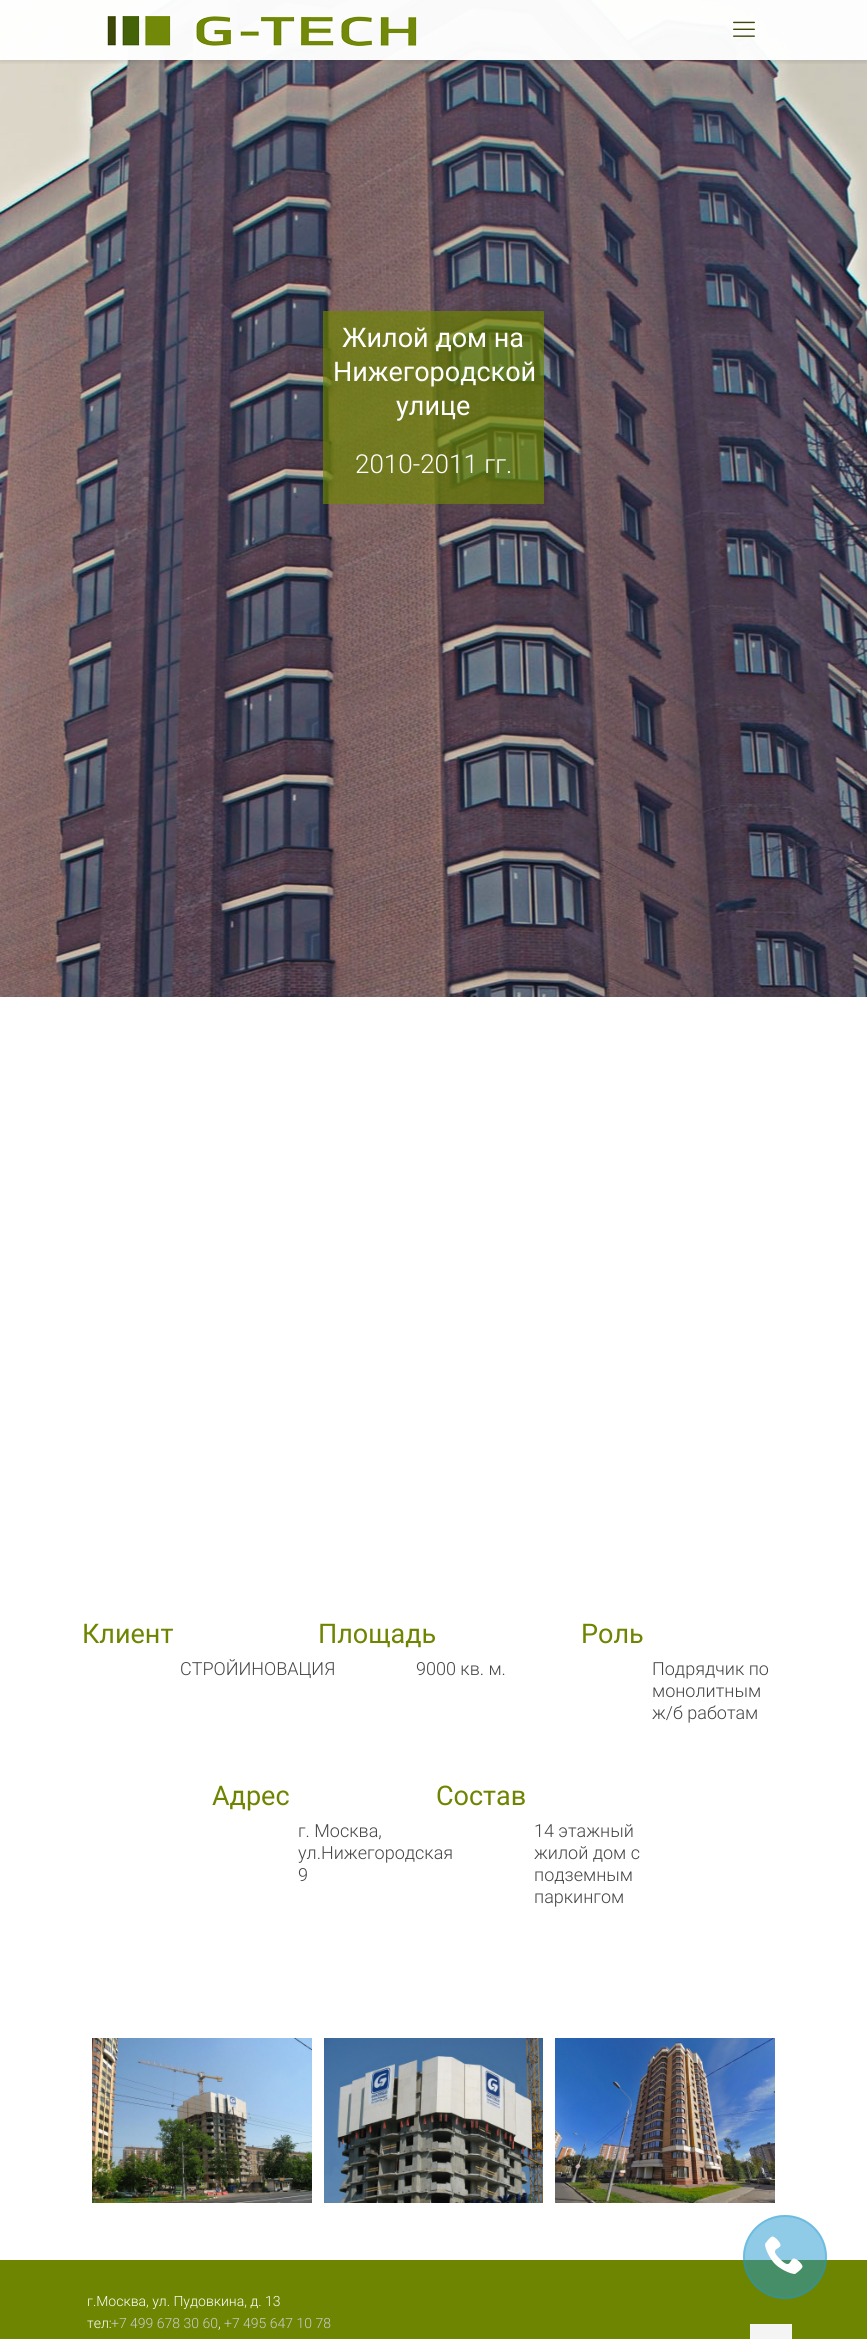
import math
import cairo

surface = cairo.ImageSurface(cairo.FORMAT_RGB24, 867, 2339)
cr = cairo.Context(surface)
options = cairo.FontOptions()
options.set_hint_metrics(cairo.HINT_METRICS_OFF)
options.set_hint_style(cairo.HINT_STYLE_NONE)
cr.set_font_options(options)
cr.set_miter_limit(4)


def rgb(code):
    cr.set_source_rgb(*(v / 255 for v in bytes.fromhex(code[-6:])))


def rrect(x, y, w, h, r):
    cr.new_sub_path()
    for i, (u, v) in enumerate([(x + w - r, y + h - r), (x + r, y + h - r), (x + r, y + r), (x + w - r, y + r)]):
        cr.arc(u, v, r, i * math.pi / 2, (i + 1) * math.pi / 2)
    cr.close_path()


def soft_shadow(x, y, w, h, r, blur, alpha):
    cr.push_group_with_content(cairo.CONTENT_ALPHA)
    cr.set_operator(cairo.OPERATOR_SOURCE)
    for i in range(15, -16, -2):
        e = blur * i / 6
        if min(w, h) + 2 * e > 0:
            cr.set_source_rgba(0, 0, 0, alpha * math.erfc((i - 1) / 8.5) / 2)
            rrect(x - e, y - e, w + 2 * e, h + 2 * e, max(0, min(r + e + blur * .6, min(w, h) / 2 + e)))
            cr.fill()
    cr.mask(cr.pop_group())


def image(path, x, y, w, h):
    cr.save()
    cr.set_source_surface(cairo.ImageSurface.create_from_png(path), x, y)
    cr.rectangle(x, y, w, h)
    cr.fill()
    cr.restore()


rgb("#ffffff")
cr.paint()
image("img/3.png", 0, 0, 867, 997)
cr.save()
cr.rectangle(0, 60, 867, 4)
cr.clip()
rgb("#000000")
soft_shadow(0, 2, 867, 60, 0, 2.5, 0.1)
cr.restore()
cr.set_source_rgba(1, 1, 1, 0.97)
cr.rectangle(0, 0, 867, 60)
cr.fill()
image("img/1.png", 107, 16, 310, 30)
image("img/2.png", 733, 21, 22, 16)
cr.set_source_rgba(0.427, 0.522, 0, 0.67)
cr.rectangle(323, 311, 221, 193)
cr.fill()
image("img/4.png", 92, 2038, 220, 165)
image("img/5.png", 324, 2038, 219, 165)
image("img/6.png", 555, 2038, 220, 165)
rgb("#6d8500")
cr.rectangle(0, 2260, 867, 79)
cr.fill()
rgb("#f5f4f4")
cr.rectangle(750, 2324, 42, 15)
cr.fill()
cr.set_source_rgba(0.125, 0.596, 0.82, 0.5)
cr.arc(785, 2257, 42, 0, 2 * math.pi)
cr.fill()
cr.arc(785, 2257, 41, 0, 2 * math.pi)
cr.set_source_rgba(0.125, 0.596, 0.82, 0.3)
cr.stroke()
image("img/7.png", 765, 2236, 38, 38)
cr.select_font_face("Roboto")
cr.set_font_size(27)
rgb("#ffffff")
for x, y, s in [
    (342, 347, "Жилой дом на"),
    (333, 381, "Нижегородской"),
    (396, 415, "улице"),
]:
    cr.move_to(x, y)
    cr.show_text(s)
cr.select_font_face("Roboto Light")
cr.set_font_size(26)
cr.move_to(355, 473)
cr.show_text("2010-2011 гг.")
cr.select_font_face("Roboto")
cr.set_font_size(27)
rgb("#6d8500")
cr.move_to(82, 1643)
cr.show_text("Клиент")
cr.select_font_face("Roboto Light")
cr.set_font_size(18)
rgb("#444444")
cr.move_to(180, 1675)
cr.show_text("СТРОЙИНОВАЦИЯ")
cr.select_font_face("Roboto")
cr.set_font_size(27)
rgb("#6d8500")
cr.move_to(318, 1643)
cr.show_text("Площадь")
cr.select_font_face("Roboto Light")
cr.set_font_size(18)
rgb("#444444")
cr.move_to(416, 1675)
cr.show_text("9000 кв. м.")
cr.select_font_face("Roboto")
cr.set_font_size(27)
rgb("#6d8500")
cr.move_to(581, 1643)
cr.show_text("Роль")
cr.select_font_face("Roboto Light")
cr.set_font_size(18)
rgb("#444444")
for x, y, s in [
    (652, 1675, "Подрядчик по"),
    (652, 1697, "монолитным"),
    (652, 1719, "ж/б работам"),
]:
    cr.move_to(x, y)
    cr.show_text(s)
cr.select_font_face("Roboto")
cr.set_font_size(27)
rgb("#6d8500")
cr.move_to(212, 1805)
cr.show_text("Адрес")
cr.select_font_face("Roboto Light")
cr.set_font_size(18)
rgb("#444444")
for x, y, s in [
    (298, 1837, "г. Москва,"),
    (298, 1859, "ул.Нижегородская"),
    (298, 1881, "9"),
]:
    cr.move_to(x, y)
    cr.show_text(s)
cr.select_font_face("Roboto")
cr.set_font_size(27)
rgb("#6d8500")
cr.move_to(436, 1805)
cr.show_text("Состав")
cr.select_font_face("Roboto Light")
cr.set_font_size(18)
rgb("#444444")
for x, y, s in [
    (534, 1837, "14 этажный"),
    (534, 1859, "жилой дом с"),
    (534, 1881, "подземным"),
    (534, 1903, "паркингом"),
]:
    cr.move_to(x, y)
    cr.show_text(s)
cr.set_font_size(14)
rgb("#ffffff")
cr.move_to(87, 2306)
cr.show_text("г.Москва, ул. Пудовкина, д. 13")
cr.move_to(87, 2328)
cr.show_text("тел:")
rgb("#cccccc")
cr.move_to(111, 2328)
cr.show_text("+7 499 678 30 60")
rgb("#ffffff")
cr.move_to(218, 2328)
cr.show_text(",")
rgb("#cccccc")
cr.move_to(224, 2328)
cr.show_text("+7 495 647 10 78")
surface.write_to_png("page.png")
